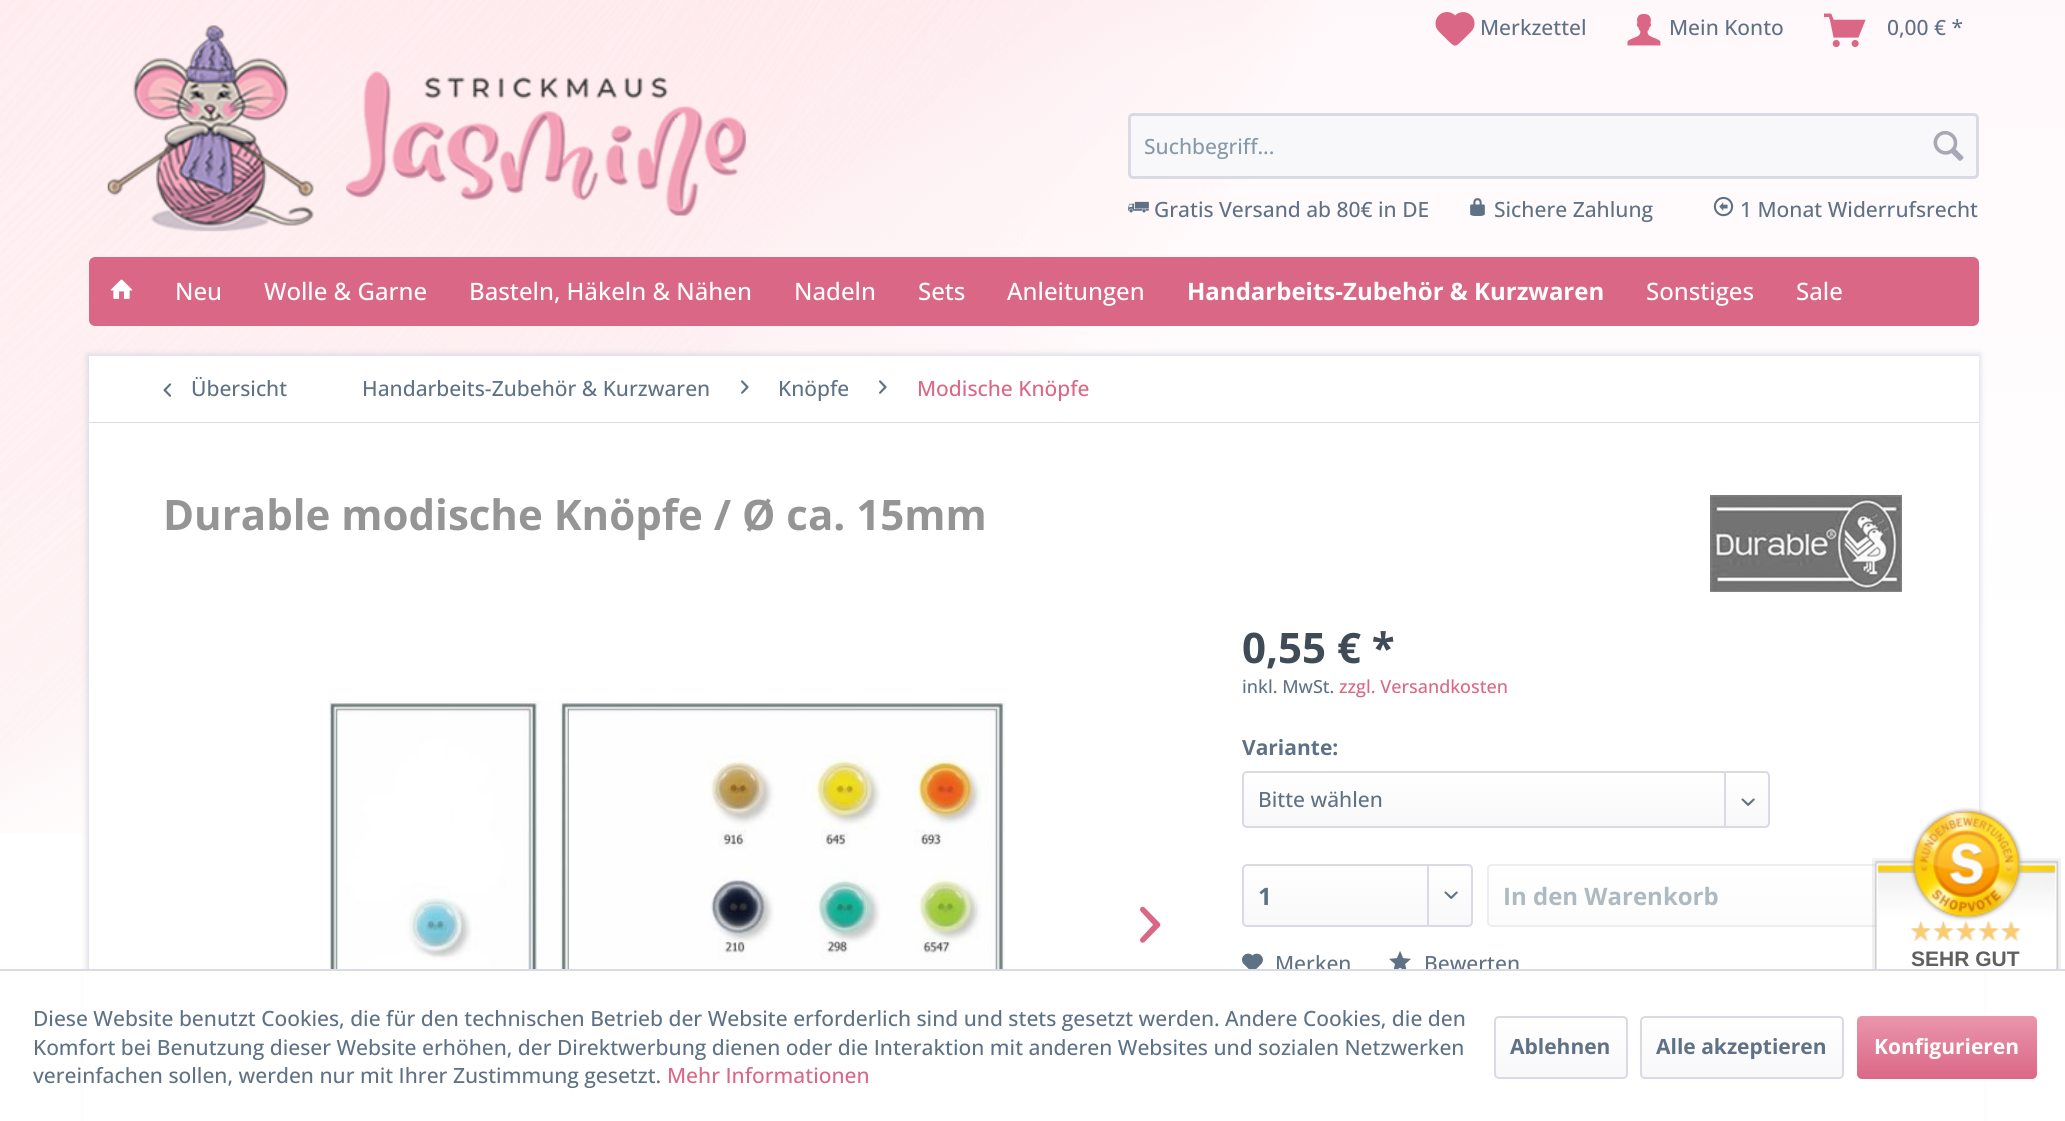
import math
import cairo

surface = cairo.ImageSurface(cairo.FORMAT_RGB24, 2065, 1121)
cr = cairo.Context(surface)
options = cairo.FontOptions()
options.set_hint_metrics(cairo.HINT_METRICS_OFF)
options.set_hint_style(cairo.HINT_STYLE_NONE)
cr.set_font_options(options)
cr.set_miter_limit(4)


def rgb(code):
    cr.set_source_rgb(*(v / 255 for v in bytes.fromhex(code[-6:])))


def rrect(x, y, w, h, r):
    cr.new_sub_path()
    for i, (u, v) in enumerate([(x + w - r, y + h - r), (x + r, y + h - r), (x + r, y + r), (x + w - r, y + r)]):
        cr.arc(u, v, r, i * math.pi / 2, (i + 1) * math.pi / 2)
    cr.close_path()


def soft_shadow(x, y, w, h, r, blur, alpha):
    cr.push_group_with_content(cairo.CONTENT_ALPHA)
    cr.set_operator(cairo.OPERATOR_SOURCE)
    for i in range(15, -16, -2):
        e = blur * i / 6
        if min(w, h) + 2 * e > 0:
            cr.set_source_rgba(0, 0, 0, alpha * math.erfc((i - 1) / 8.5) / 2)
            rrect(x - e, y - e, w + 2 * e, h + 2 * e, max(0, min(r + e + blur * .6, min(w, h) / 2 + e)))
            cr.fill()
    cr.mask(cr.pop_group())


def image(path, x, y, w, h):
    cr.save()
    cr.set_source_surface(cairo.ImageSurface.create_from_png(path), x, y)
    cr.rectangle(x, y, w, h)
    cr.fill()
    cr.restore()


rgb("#ffffff")
cr.paint()
image("img/1.png", 0, 0, 2065, 833)
image("img/2.png", 107, 25, 640, 207)
image("img/3.png", 1435, 12, 40, 34)
image("img/4.png", 1627, 14, 34, 32)
image("img/5.png", 1824, 13, 42, 35)
rgb("#f8f8fa")
rrect(1129.5, 114.5, 848, 63, 3.5)
cr.fill_preserve()
rgb("#dadae5")
cr.set_line_width(3)
cr.stroke()
image("img/6.png", 1933, 130, 31, 31)
image("img/7.png", 1128, 201, 21, 12)
image("img/8.png", 1470, 198, 15, 18)
image("img/9.png", 1713, 196, 21, 21)
rgb("#ffffff")
cr.rectangle(89, 257, 1890, 69)
cr.fill()
rgb("#db6786")
rrect(89, 257, 1890, 69, 6)
cr.fill()
image("img/10.png", 110, 279, 23, 20)
rgb("#dadae5")
soft_shadow(87, 354, 1893, 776, 0, 3, 1)
rgb("#ffffff")
cr.rectangle(89, 356, 1890, 66)
cr.fill()
rgb("#dadae5")
cr.rectangle(89, 422, 1890, 1)
cr.fill()
image("img/11.png", 163, 383, 9, 14)
image("img/12.png", 741, 380, 8, 14)
image("img/12.png", 879, 380, 8, 14)
rgb("#ffffff")
cr.rectangle(89, 423, 1890, 546)
cr.fill()
image("img/13.png", 1710, 495, 192, 97)
image("img/14.png", 328, 700, 678, 269)
image("img/15.png", 1140, 906, 21, 37)
gradient = cairo.LinearGradient(1506, 773, 1506, 827)
gradient.add_color_stop_rgba(0, 1, 1, 1, 1)
gradient.add_color_stop_rgba(1, 0.973, 0.973, 0.98, 1)
cr.set_source(gradient)
rrect(1244, 773, 525, 54, 3)
cr.fill()
rrect(1243, 772, 526, 55, 4)
rgb("#dadae5")
cr.set_line_width(2)
cr.stroke()
cr.rectangle(1724, 773, 2, 54)
cr.fill()
image("img/16.png", 1741, 798, 14, 8)
gradient = cairo.LinearGradient(1358, 866, 1358, 926)
gradient.add_color_stop_rgba(0, 1, 1, 1, 1)
gradient.add_color_stop_rgba(1, 0.973, 0.973, 0.98, 1)
cr.set_source(gradient)
rrect(1244, 866, 228, 60, 3)
cr.fill()
rrect(1243, 865, 229, 61, 4)
rgb("#dadae5")
cr.stroke()
cr.rectangle(1427, 866, 2, 60)
cr.fill()
image("img/17.png", 1444, 891, 14, 8)
gradient = cairo.LinearGradient(1694, 866, 1694, 926)
gradient.add_color_stop_rgba(0, 1, 1, 1, 1)
gradient.add_color_stop_rgba(1, 0.988, 0.988, 0.992, 1)
cr.set_source(gradient)
rrect(1488, 866, 413, 60, 3)
cr.fill()
rrect(1488, 865, 413, 61, 4)
rgb("#ededf2")
cr.stroke()
image("img/18.png", 1875, 887, 1, 16)
image("img/19.png", 1242, 953, 21, 16)
image("img/20.png", 1389, 951, 22, 18)
image("img/21.png", 1872, 807, 189, 162)
image("img/22.png", 1911, 921, 108, 20)
cr.select_font_face("Open Sans Medium")
cr.set_font_size(21)
rgb("#5f7285")
for x, y, s in [
    (1480, 35, "Merkzettel"),
    (1669, 35, "Mein Konto"),
    (1887, 35, "0,00 € *"),
]:
    cr.move_to(x, y)
    cr.show_text(s)
cr.save()
cr.rectangle(1145, 132, 768, 29)
cr.clip()
rgb("#8798a9")
cr.move_to(1144, 154)
cr.show_text("Suchbegriff...")
cr.restore()
for x, y, s in [
    (1154, 217, "Gratis Versand ab 80€ in DE"),
    (1494, 217, "Sichere Zahlung"),
    (1740, 217, "1 Monat Widerrufsrecht"),
]:
    cr.move_to(x, y)
    cr.show_text(s)
cr.set_font_size(24)
rgb("#ffffff")
for x, y, s in [
    (175, 300, "Neu"),
    (264, 300, "Wolle & Garne"),
    (469, 300, "Basteln, Häkeln & Nähen"),
    (794, 300, "Nadeln"),
    (918, 300, "Sets"),
    (1007, 300, "Anleitungen"),
]:
    cr.move_to(x, y)
    cr.show_text(s)
cr.select_font_face("Open Sans", cairo.FONT_SLANT_NORMAL, cairo.FONT_WEIGHT_BOLD)
cr.move_to(1187, 300)
cr.show_text("Handarbeits-Zubehör & Kurzwaren")
cr.select_font_face("Open Sans Medium")
cr.move_to(1646, 300)
cr.show_text("Sonstiges")
cr.move_to(1796, 300)
cr.show_text("Sale")
cr.set_font_size(21)
rgb("#5f7285")
for x, y, s in [
    (191, 396, "Übersicht"),
    (362, 396, "Handarbeits-Zubehör & Kurzwaren"),
    (778, 396, "Knöpfe"),
]:
    cr.move_to(x, y)
    cr.show_text(s)
rgb("#db6786")
cr.move_to(917, 396)
cr.show_text("Modische Knöpfe")
cr.select_font_face("Open Sans", cairo.FONT_SLANT_NORMAL, cairo.FONT_WEIGHT_BOLD)
cr.set_font_size(42)
rgb("#959595")
cr.move_to(163, 530)
cr.show_text("Durable modische Knöpfe / Ø ca. 15mm")
rgb("#3f4c58")
cr.move_to(1242, 663)
cr.show_text("0,55 € *")
cr.select_font_face("Open Sans Medium")
cr.set_font_size(18)
rgb("#5f7285")
cr.move_to(1242, 693)
cr.show_text("inkl. MwSt.")
rgb("#db6786")
cr.move_to(1339, 693)
cr.show_text("zzgl. Versandkosten")
cr.select_font_face("Open Sans", cairo.FONT_SLANT_NORMAL, cairo.FONT_WEIGHT_BOLD)
cr.set_font_size(21)
rgb("#5f7285")
cr.move_to(1242, 755)
cr.show_text("Variante:")
cr.select_font_face("Open Sans Medium")
cr.move_to(1258, 807)
cr.show_text("Bitte wählen")
cr.select_font_face("Open Sans", cairo.FONT_SLANT_NORMAL, cairo.FONT_WEIGHT_BOLD)
cr.set_font_size(24)
cr.move_to(1258, 905)
cr.show_text("1")
rgb("#afb9c2")
cr.move_to(1503, 905)
cr.show_text("In den Warenkorb")
cr.select_font_face("Open Sans Medium")
cr.set_font_size(21)
rgb("#5f7285")
cr.move_to(1275, 971)
cr.show_text("Merken")
cr.move_to(1424, 971)
cr.show_text("Bewerten")
cr.select_font_face("Liberation Sans", cairo.FONT_SLANT_NORMAL, cairo.FONT_WEIGHT_BOLD)
rgb("#606060")
cr.move_to(1911, 966)
cr.show_text("SEHR GUT")
rgb("#ffffff")
cr.rectangle(83, 971, 1901, 150)
cr.fill()
rgb("#dadae5")
cr.rectangle(0, 969, 2065, 2)
cr.fill()
cr.select_font_face("Open Sans Medium")
rgb("#5f7285")
for x, y, s in [
    (33, 1026, "Diese Website benutzt Cookies, die für den technischen Betrieb der Website erforderlich sind und stets gesetzt werden. Andere Cookies, die den"),
    (33, 1055, "Komfort bei Benutzung dieser Website erhöhen, der Direktwerbung dienen oder die Interaktion mit anderen Websites und sozialen Netzwerken"),
    (33, 1083, "vereinfachen sollen, werden nur mit Ihrer Zustimmung gesetzt."),
]:
    cr.move_to(x, y)
    cr.show_text(s)
rgb("#db6786")
cr.move_to(667, 1083)
cr.show_text("Mehr Informationen")
gradient = cairo.LinearGradient(1561, 1017, 1561, 1077)
gradient.add_color_stop_rgba(0, 1, 1, 1, 1)
gradient.add_color_stop_rgba(1, 0.973, 0.973, 0.98, 1)
cr.set_source(gradient)
rrect(1496, 1017, 130, 60, 3)
cr.fill()
rrect(1495, 1017, 132, 61, 4)
rgb("#dadae5")
cr.stroke()
cr.select_font_face("Open Sans", cairo.FONT_SLANT_NORMAL, cairo.FONT_WEIGHT_BOLD)
rgb("#5f7285")
cr.move_to(1510, 1054)
cr.show_text("Ablehnen")
gradient = cairo.LinearGradient(1742, 1017, 1742, 1077)
gradient.add_color_stop_rgba(0, 1, 1, 1, 1)
gradient.add_color_stop_rgba(1, 0.973, 0.973, 0.98, 1)
cr.set_source(gradient)
rrect(1641, 1017, 201, 60, 3)
cr.fill()
rrect(1641, 1017, 202, 61, 4)
rgb("#dadae5")
cr.stroke()
rgb("#5f7285")
cr.move_to(1656, 1054)
cr.show_text("Alle akzeptieren")
gradient = cairo.LinearGradient(1947, 1016, 1947, 1079)
gradient.add_color_stop_rgba(0, 0.918, 0.584, 0.675, 1)
gradient.add_color_stop_rgba(1, 0.859, 0.404, 0.525, 1)
cr.set_source(gradient)
rrect(1857, 1016, 180, 63, 5)
cr.fill()
rgb("#ffffff")
cr.move_to(1874, 1054)
cr.show_text("Konfigurieren")
surface.write_to_png("page.png")
